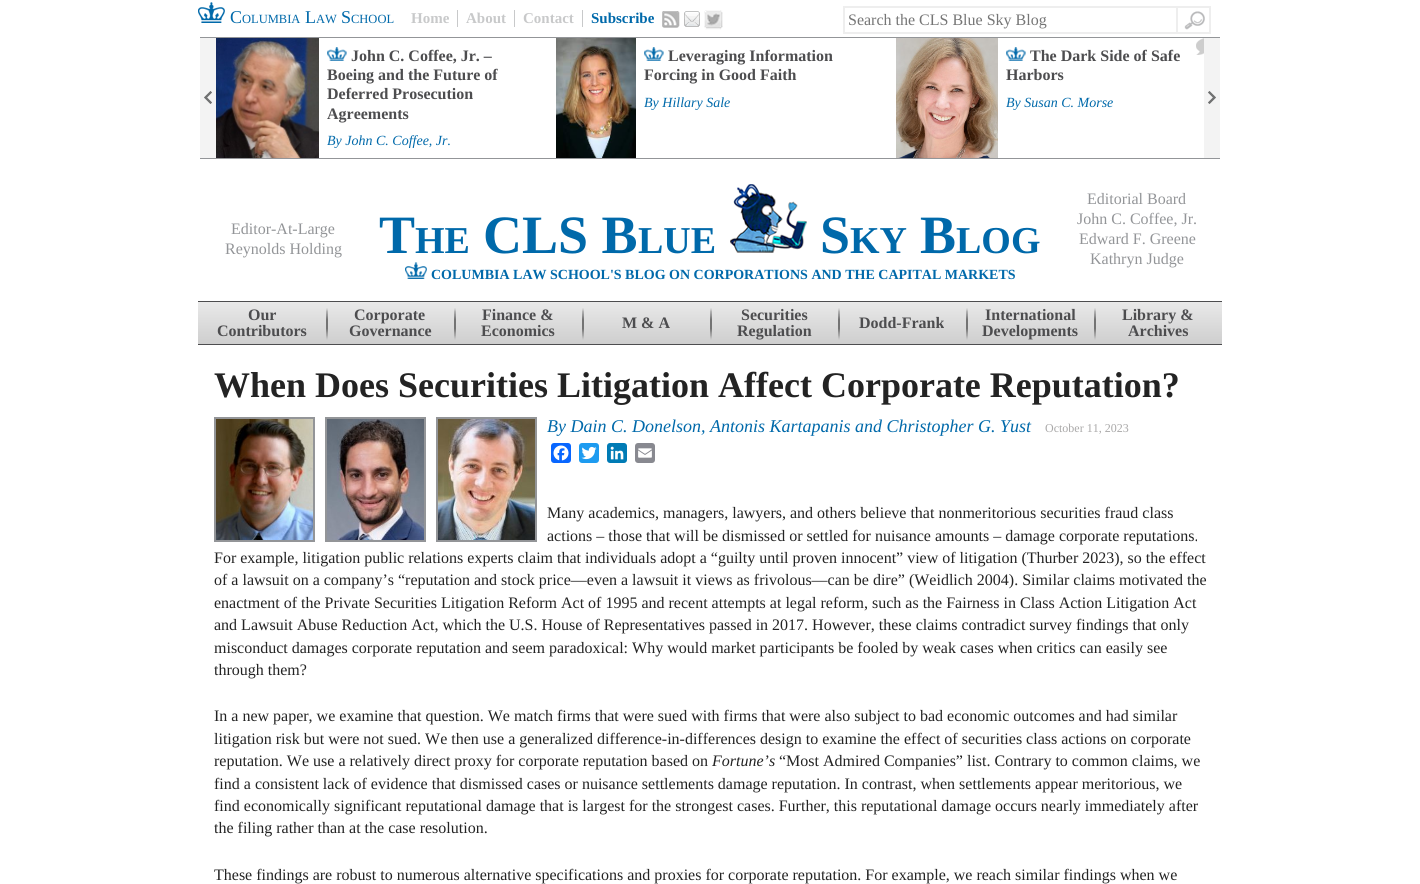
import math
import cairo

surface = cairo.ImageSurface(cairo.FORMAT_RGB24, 1420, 884)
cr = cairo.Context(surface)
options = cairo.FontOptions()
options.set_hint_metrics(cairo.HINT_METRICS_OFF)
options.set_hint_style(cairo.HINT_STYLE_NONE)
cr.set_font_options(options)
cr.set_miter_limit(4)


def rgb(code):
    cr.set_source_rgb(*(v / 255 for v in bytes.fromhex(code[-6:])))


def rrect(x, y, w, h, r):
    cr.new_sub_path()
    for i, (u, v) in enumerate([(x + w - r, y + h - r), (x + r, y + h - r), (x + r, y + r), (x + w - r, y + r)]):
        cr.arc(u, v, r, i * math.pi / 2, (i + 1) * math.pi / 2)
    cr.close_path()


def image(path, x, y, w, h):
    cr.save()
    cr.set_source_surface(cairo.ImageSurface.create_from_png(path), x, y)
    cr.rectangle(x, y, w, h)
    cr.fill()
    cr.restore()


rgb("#ffffff")
cr.paint()
image("img/1.png", 198, 2, 27, 21)
for x, y, w, h, color in [
    (457, 10, 1, 17, "#c8c9ca"),
    (514, 10, 1, 17, "#c8c9ca"),
    (582, 10, 1, 17, "#c8c9ca"),
]:
    rgb(color)
    cr.rectangle(x, y, w, h)
    cr.fill()
image("img/2.png", 662, 11, 18, 17)
image("img/3.png", 684, 11, 16, 16)
image("img/4.png", 704, 10, 19, 20)
cr.rectangle(844, 7, 333, 26)
rgb("#eeeeee")
cr.stroke()
image("img/5.png", 1184, 11, 21, 19)
for x, y, w, h, color in [
    (1178, 6, 33, 2, "#eeeeee"),
    (1209, 6, 2, 28, "#eeeeee"),
    (1178, 32, 33, 2, "#eeeeee"),
    (200, 37, 1020, 1, "#939598"),
    (200, 158, 1020, 1, "#939598"),
    (200, 38, 16, 120, "#f3f3f3"),
]:
    rgb(color)
    cr.rectangle(x, y, w, h)
    cr.fill()
image("img/6.png", 204, 91, 8, 13)
cr.rectangle(1204, 38, 16, 120)
cr.fill()
image("img/7.png", 1208, 91, 8, 13)
image("img/8.png", 216, 38, 103, 120)
image("img/9.png", 327, 47, 20, 14)
image("img/10.png", 556, 38, 80, 120)
image("img/9.png", 644, 47, 20, 14)
image("img/11.png", 896, 38, 102, 120)
image("img/12.png", 1196, 38, 8, 17)
image("img/9.png", 1006, 47, 20, 14)
image("img/13.png", 730, 184, 77, 69)
image("img/14.png", 405, 262, 22, 17)
gradient = cairo.LinearGradient(710, 302, 710, 344)
gradient.add_color_stop_rgba(0, 0.914, 0.914, 0.914, 1)
gradient.add_color_stop_rgba(1, 0.808, 0.808, 0.808, 1)
cr.set_source(gradient)
cr.rectangle(198, 302, 1024, 42)
cr.fill()
rgb("#4d4d4f")
cr.rectangle(198, 301, 1024, 1)
cr.fill()
cr.rectangle(198, 344, 1024, 1)
cr.fill()
image("img/15.png", 326, 308, 2, 32)
image("img/15.png", 454, 308, 2, 32)
image("img/15.png", 582, 308, 2, 32)
image("img/15.png", 710, 308, 2, 32)
image("img/15.png", 838, 308, 2, 32)
image("img/15.png", 966, 308, 2, 32)
image("img/15.png", 1094, 308, 2, 32)
cr.rectangle(215, 418, 99, 123)
rgb("#939598")
cr.stroke()
image("img/16.png", 216, 419, 97, 121)
cr.rectangle(326, 418, 99, 123)
cr.stroke()
image("img/17.png", 327, 419, 97, 121)
cr.rectangle(437, 418, 99, 123)
cr.stroke()
image("img/18.png", 438, 419, 97, 121)
rgb("#0866ff")
rrect(551, 443, 20, 20, 3)
cr.fill()
image("img/19.png", 553, 445, 16, 16)
rgb("#1d9bf0")
rrect(579, 443, 20, 20, 3)
cr.fill()
image("img/20.png", 581, 446, 16, 14)
rgb("#007bb5")
rrect(607, 443, 20, 20, 3)
cr.fill()
image("img/21.png", 610, 446, 14, 14)
rgb("#888990")
rrect(635, 443, 20, 20, 3)
cr.fill()
image("img/22.png", 638, 448, 14, 10)
cr.select_font_face("Liberation Serif")
cr.set_font_size(18)
rgb("#0069aa")
cr.move_to(230, 23)
cr.show_text("C")
cr.set_font_size(12.5)
cr.move_to(242, 23)
cr.show_text("OLUMBIA")
cr.set_font_size(18)
cr.move_to(305, 23)
cr.show_text("L")
cr.set_font_size(12.5)
cr.move_to(316, 23)
cr.show_text("AW")
cr.set_font_size(18)
cr.move_to(341, 23)
cr.show_text("S")
cr.set_font_size(12.5)
cr.move_to(351, 23)
cr.show_text("CHOOL")
cr.select_font_face("Liberation Serif", cairo.FONT_SLANT_NORMAL, cairo.FONT_WEIGHT_BOLD)
cr.set_font_size(15)
rgb("#c8c9ca")
for x, y, s in [
    (411, 23, "Home"),
    (466, 23, "About"),
    (523, 23, "Contact"),
]:
    cr.move_to(x, y)
    cr.show_text(s)
rgb("#0069aa")
cr.move_to(591, 23)
cr.show_text("Subscribe")
cr.select_font_face("Liberation Serif")
cr.set_font_size(16)
rgb("#757575")
cr.move_to(848, 25)
cr.show_text("Search the CLS Blue Sky Blog")
cr.select_font_face("Liberation Serif", cairo.FONT_SLANT_NORMAL, cairo.FONT_WEIGHT_BOLD)
rgb("#4d4d4f")
for x, y, s in [
    (351, 61, "John C. Coffee, Jr. –"),
    (327, 80, "Boeing and the Future of"),
    (327, 99, "Deferred Prosecution"),
    (327, 119, "Agreements"),
]:
    cr.move_to(x, y)
    cr.show_text(s)
cr.select_font_face("Liberation Serif", cairo.FONT_SLANT_ITALIC)
cr.set_font_size(14)
rgb("#0069aa")
cr.move_to(327, 145)
cr.show_text("By John C. Coffee, Jr.")
cr.select_font_face("Liberation Serif", cairo.FONT_SLANT_NORMAL, cairo.FONT_WEIGHT_BOLD)
cr.set_font_size(16)
rgb("#4d4d4f")
cr.move_to(668, 61)
cr.show_text("Leveraging Information")
cr.move_to(644, 80)
cr.show_text("Forcing in Good Faith")
cr.select_font_face("Liberation Serif", cairo.FONT_SLANT_ITALIC)
cr.set_font_size(14)
rgb("#0069aa")
cr.move_to(644, 107)
cr.show_text("By Hillary Sale")
cr.select_font_face("Liberation Serif", cairo.FONT_SLANT_NORMAL, cairo.FONT_WEIGHT_BOLD)
cr.set_font_size(16)
rgb("#4d4d4f")
cr.move_to(1030, 61)
cr.show_text("The Dark Side of Safe")
cr.move_to(1006, 80)
cr.show_text("Harbors")
cr.select_font_face("Liberation Serif", cairo.FONT_SLANT_ITALIC)
cr.set_font_size(14)
rgb("#0069aa")
cr.move_to(1006, 107)
cr.show_text("By Susan C. Morse")
cr.select_font_face("Liberation Serif")
cr.set_font_size(16)
rgb("#939598")
cr.move_to(231, 234)
cr.show_text("Editor-At-Large")
cr.move_to(225, 254)
cr.show_text("Reynolds Holding")
cr.select_font_face("Liberation Serif", cairo.FONT_SLANT_NORMAL, cairo.FONT_WEIGHT_BOLD)
cr.set_font_size(54)
rgb("#0069aa")
cr.move_to(379, 253)
cr.show_text("T")
cr.set_font_size(38)
cr.move_to(415, 253)
cr.show_text("HE")
cr.set_font_size(54)
cr.move_to(483, 253)
cr.show_text("CLS B")
cr.set_font_size(38)
cr.move_to(638, 253)
cr.show_text("LUE")
cr.set_font_size(54)
cr.move_to(820, 253)
cr.show_text("S")
cr.set_font_size(38)
cr.move_to(850, 253)
cr.show_text("KY")
cr.set_font_size(54)
cr.move_to(920, 253)
cr.show_text("B")
cr.set_font_size(38)
cr.move_to(956, 253)
cr.show_text("LOG")
cr.set_font_size(14)
cr.move_to(431, 279)
cr.show_text("COLUMBIA LAW SCHOOL'S BLOG ON CORPORATIONS AND THE CAPITAL MARKETS")
cr.select_font_face("Liberation Serif")
cr.set_font_size(16)
rgb("#939598")
for x, y, s in [
    (1087, 204, "Editorial Board"),
    (1077, 224, "John C. Coffee, Jr."),
    (1079, 244, "Edward F. Greene"),
    (1090, 264, "Kathryn Judge"),
]:
    cr.move_to(x, y)
    cr.show_text(s)
cr.select_font_face("Liberation Serif", cairo.FONT_SLANT_NORMAL, cairo.FONT_WEIGHT_BOLD)
rgb("#4d4d4f")
for x, y, s in [
    (248, 320, "Our"),
    (217, 336, "Contributors"),
    (354, 320, "Corporate"),
    (349, 336, "Governance"),
    (482, 320, "Finance &"),
    (481, 336, "Economics"),
    (622, 328, "M & A"),
    (741, 320, "Securities"),
    (737, 336, "Regulation"),
    (859, 328, "Dodd-Frank"),
    (985, 320, "International"),
    (982, 336, "Developments"),
    (1122, 320, "Library &"),
    (1128, 336, "Archives"),
]:
    cr.move_to(x, y)
    cr.show_text(s)
cr.set_font_size(36)
rgb("#232323")
cr.move_to(214, 397)
cr.show_text("When Does Securities Litigation Affect Corporate Reputation?")
cr.select_font_face("Liberation Serif", cairo.FONT_SLANT_ITALIC)
cr.set_font_size(18)
rgb("#0069aa")
for x, y, s in [
    (547, 432, "By Dain C. Donelson"),
    (701, 432, ", Antonis Kartapanis"),
    (855, 432, "and Christopher G. Yust"),
]:
    cr.move_to(x, y)
    cr.show_text(s)
cr.select_font_face("Liberation Serif")
cr.set_font_size(12)
rgb("#a9a8a8")
cr.move_to(1045, 432)
cr.show_text("October 11, 2023")
cr.set_font_size(16)
rgb("#232323")
for x, y, s in [
    (547, 518, "Many academics, managers, lawyers, and others believe that nonmeritorious securities fraud class"),
    (547, 541, "actions – those that will be dismissed or settled for nuisance amounts – damage corporate reputations."),
    (214, 563, "For example, litigation public relations experts claim that individuals adopt a “guilty until proven innocent” view of litigation (Thurber 2023), so the effect"),
    (214, 585, "of a lawsuit on a company’s “reputation and stock price—even a lawsuit it views as frivolous—can be dire” (Weidlich 2004). Similar claims motivated the"),
    (214, 608, "enactment of the Private Securities Litigation Reform Act of 1995 and recent attempts at legal reform, such as the Fairness in Class Action Litigation Act"),
    (214, 630, "and Lawsuit Abuse Reduction Act, which the U.S. House of Representatives passed in 2017. However, these claims contradict survey findings that only"),
    (214, 653, "misconduct damages corporate reputation and seem paradoxical: Why would market participants be fooled by weak cases when critics can easily see"),
    (214, 675, "through them?"),
    (214, 721, "In a new paper, we examine that question. We match firms that were sued with firms that were also subject to bad economic outcomes and had similar"),
    (214, 744, "litigation risk but were not sued. We then use a generalized difference-in-differences design to examine the effect of securities class actions on corporate"),
    (214, 766, "reputation. We use a relatively direct proxy for corporate reputation based on"),
]:
    cr.move_to(x, y)
    cr.show_text(s)
cr.select_font_face("Liberation Serif", cairo.FONT_SLANT_ITALIC)
cr.move_to(712, 766)
cr.show_text("Fortune’s")
cr.select_font_face("Liberation Serif")
for x, y, s in [
    (779, 766, "“Most Admired Companies” list. Contrary to common claims, we"),
    (214, 789, "find a consistent lack of evidence that dismissed cases or nuisance settlements damage reputation. In contrast, when settlements appear meritorious, we"),
    (214, 811, "find economically significant reputational damage that is largest for the strongest cases. Further, this reputational damage occurs nearly immediately after"),
    (214, 833, "the filing rather than at the case resolution."),
    (214, 880, "These findings are robust to numerous alternative specifications and proxies for corporate reputation. For example, we reach similar findings when we"),
]:
    cr.move_to(x, y)
    cr.show_text(s)
surface.write_to_png("page.png")
